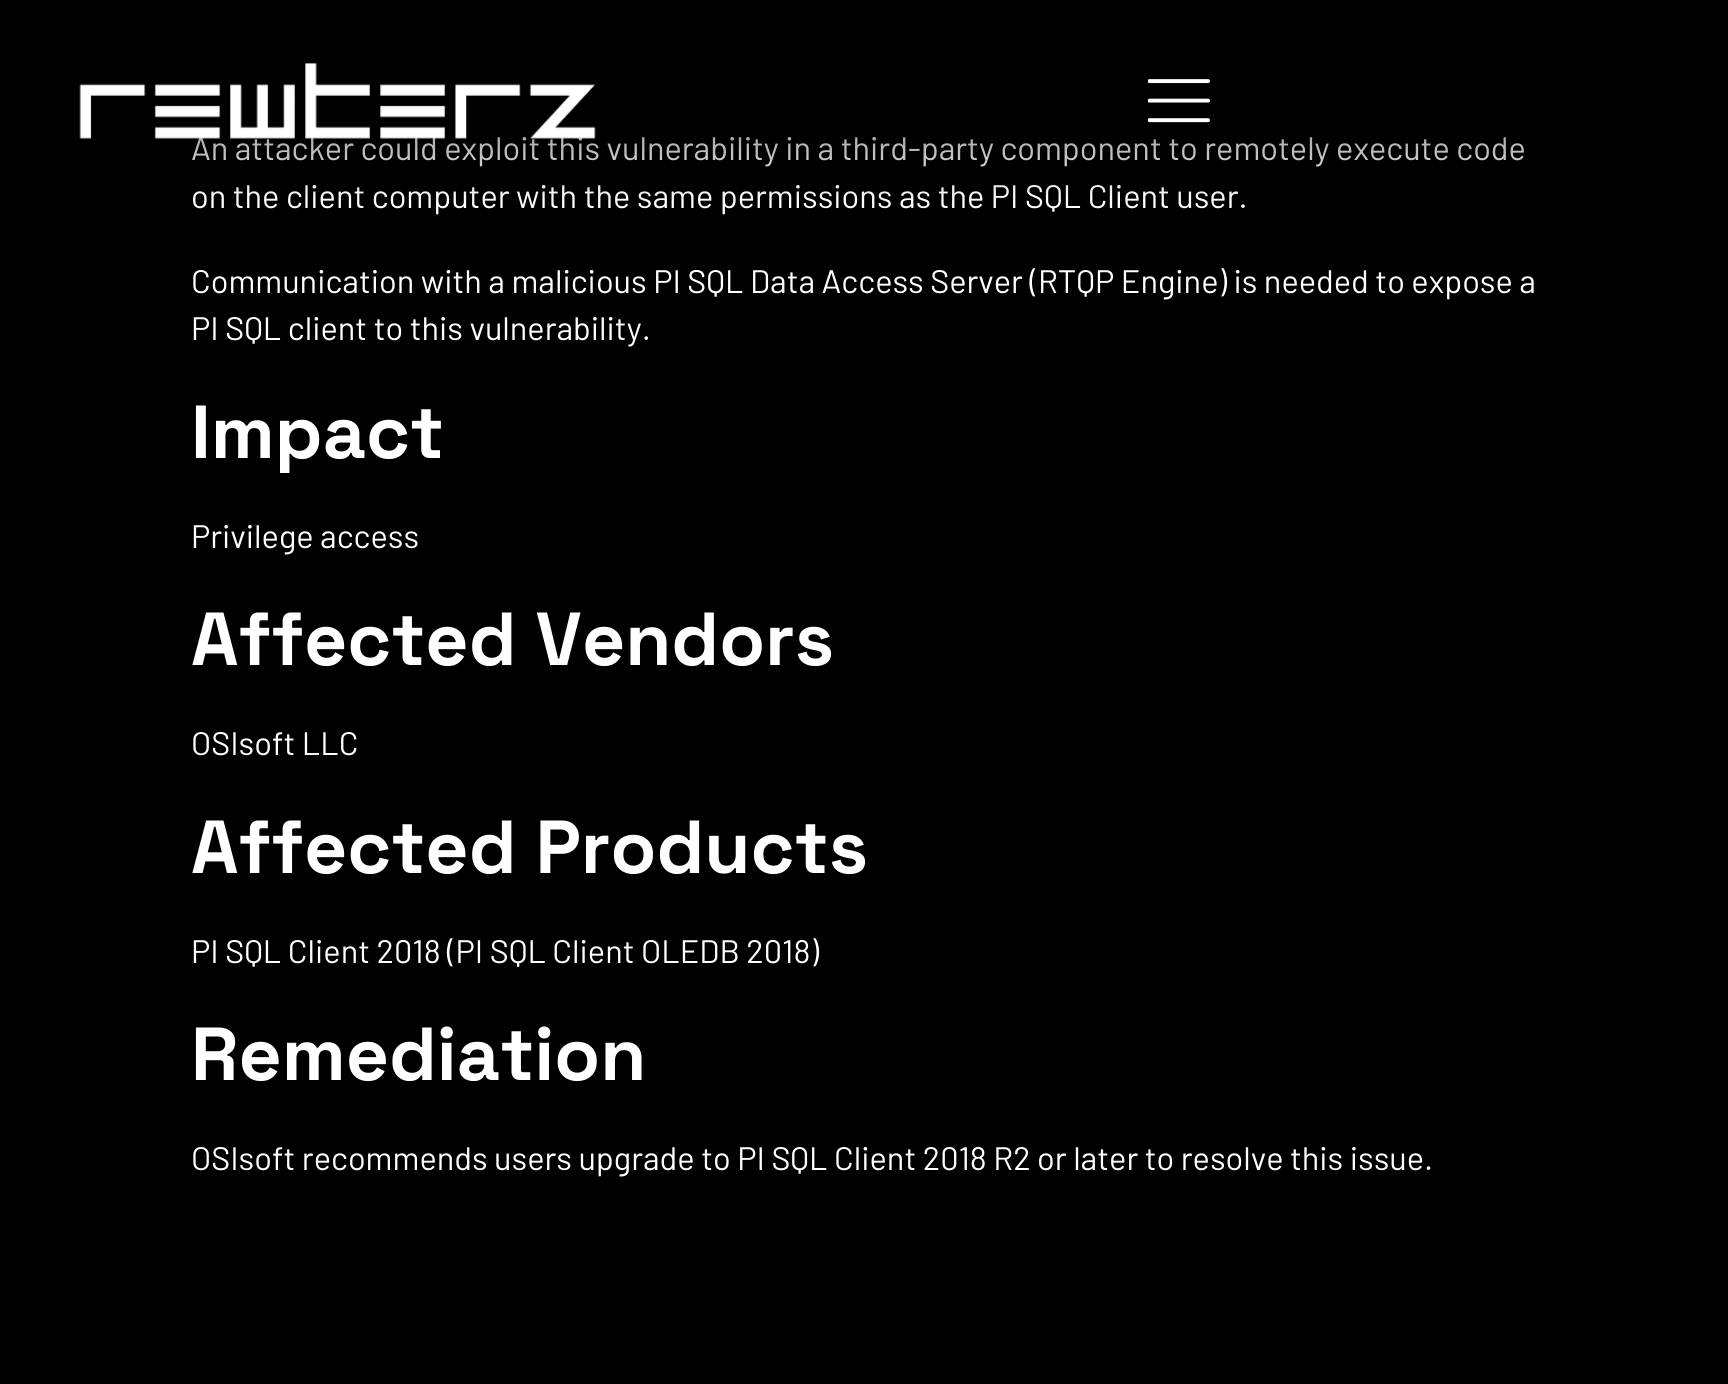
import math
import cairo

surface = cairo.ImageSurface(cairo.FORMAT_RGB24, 1728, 1384)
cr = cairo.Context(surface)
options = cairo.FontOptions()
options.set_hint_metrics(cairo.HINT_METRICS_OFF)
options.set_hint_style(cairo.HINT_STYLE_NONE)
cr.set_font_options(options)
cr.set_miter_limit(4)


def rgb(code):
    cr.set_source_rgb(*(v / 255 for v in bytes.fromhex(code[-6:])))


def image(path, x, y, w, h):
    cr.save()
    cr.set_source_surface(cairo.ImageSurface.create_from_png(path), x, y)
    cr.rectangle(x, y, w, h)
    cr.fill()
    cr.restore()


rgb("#000000")
cr.paint()
image("img/2.png", 1148, 79, 62, 44)
cr.select_font_face("Barlow")
cr.set_font_size(32.5)
rgb("#ffffff")
cr.move_to(191, 160)
cr.show_text("An attacker could exploit this vulnerability in a third-party component to remotely execute code")
cr.move_to(191, 208)
cr.show_text("on the client computer with the same permissions as the PI SQL Client user.")
gradient = cairo.LinearGradient(865, 203, 865, 0)
gradient.add_color_stop_rgba(0, 0, 0, 0, 0)
gradient.add_color_stop_rgba(1, 0, 0, 0, 1)
cr.set_source(gradient)
cr.rectangle(192, 136, 1333, 63)
cr.fill()
image("img/1.png", 79, 63, 517, 76)
rgb("#ffffff")
cr.move_to(191, 293)
cr.show_text("Communication with a malicious PI SQL Data Access Server (RTQP Engine) is needed to expose a")
cr.move_to(191, 340)
cr.show_text("PI SQL client to this vulnerability.")
cr.select_font_face("Space Grotesk", cairo.FONT_SLANT_NORMAL, cairo.FONT_WEIGHT_BOLD)
cr.set_font_size(75)
cr.move_to(191, 458)
cr.show_text("Impact")
cr.select_font_face("Barlow")
cr.set_font_size(32.5)
cr.move_to(191, 548)
cr.show_text("Privilege access")
cr.select_font_face("Space Grotesk", cairo.FONT_SLANT_NORMAL, cairo.FONT_WEIGHT_BOLD)
cr.set_font_size(75)
cr.move_to(191, 665)
cr.show_text("Affected Vendors")
cr.select_font_face("Barlow")
cr.set_font_size(32.5)
cr.move_to(191, 755)
cr.show_text("OSIsoft LLC")
cr.select_font_face("Space Grotesk", cairo.FONT_SLANT_NORMAL, cairo.FONT_WEIGHT_BOLD)
cr.set_font_size(75)
cr.move_to(191, 873)
cr.show_text("Affected Products")
cr.select_font_face("Barlow")
cr.set_font_size(32.5)
cr.move_to(191, 963)
cr.show_text("PI SQL Client 2018 (PI SQL Client OLEDB 2018)")
cr.select_font_face("Space Grotesk", cairo.FONT_SLANT_NORMAL, cairo.FONT_WEIGHT_BOLD)
cr.set_font_size(75)
cr.move_to(191, 1080)
cr.show_text("Remediation")
cr.select_font_face("Barlow")
cr.set_font_size(32.5)
cr.move_to(191, 1170)
cr.show_text("OSIsoft recommends users upgrade to PI SQL Client 2018 R2 or later to resolve this issue.")
surface.write_to_png("page.png")
